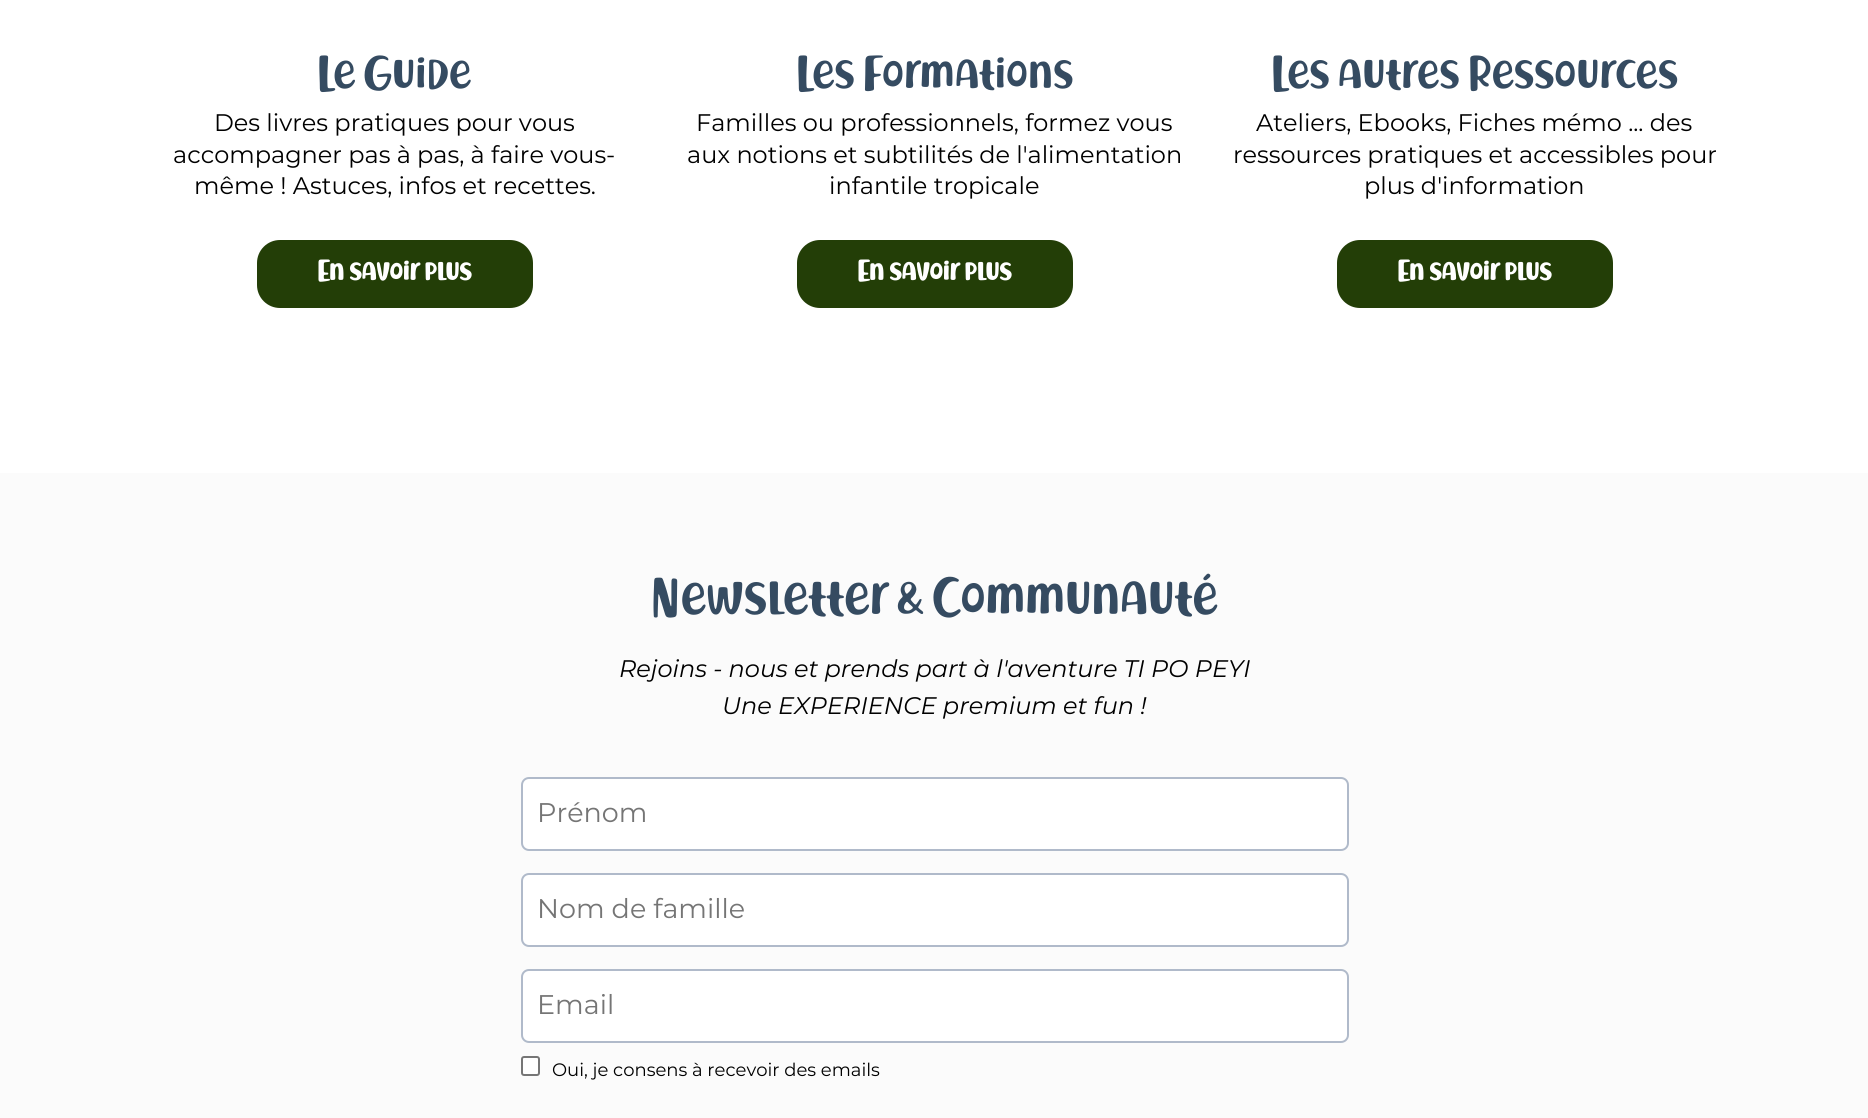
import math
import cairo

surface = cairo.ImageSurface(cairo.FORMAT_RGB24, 1868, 1118)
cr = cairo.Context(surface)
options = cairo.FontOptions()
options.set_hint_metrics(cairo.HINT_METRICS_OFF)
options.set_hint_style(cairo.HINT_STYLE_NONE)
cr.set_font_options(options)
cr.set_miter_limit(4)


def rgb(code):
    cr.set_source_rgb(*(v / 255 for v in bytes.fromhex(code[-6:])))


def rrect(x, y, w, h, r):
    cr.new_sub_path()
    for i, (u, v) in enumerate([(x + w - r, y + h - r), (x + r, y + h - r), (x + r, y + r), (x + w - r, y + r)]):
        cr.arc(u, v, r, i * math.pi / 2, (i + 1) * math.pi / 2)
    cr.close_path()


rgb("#ffffff")
cr.paint()
rgb("#233e07")
rrect(257, 240, 276, 68, 23)
cr.fill()
rrect(797, 240, 276, 68, 23)
cr.fill()
rrect(1337, 240, 276, 68, 23)
cr.fill()
rgb("#fbfbfb")
cr.rectangle(0, 473, 1868, 645)
cr.fill()
rgb("#ffffff")
rrect(522, 778, 826, 72, 7)
cr.fill_preserve()
rgb("#b0baca")
cr.stroke()
rgb("#ffffff")
rrect(522, 874, 826, 72, 7)
cr.fill_preserve()
rgb("#b0baca")
cr.stroke()
rgb("#ffffff")
rrect(522, 970, 826, 72, 7)
cr.fill_preserve()
rgb("#b0baca")
cr.stroke()
rgb("#ffffff")
rrect(522, 1057, 17, 18, 2)
cr.fill_preserve()
rgb("#767676")
cr.stroke()
cr.select_font_face("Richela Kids")
cr.set_font_size(42)
rgb("#354b61")
cr.move_to(317, 88)
cr.show_text("Le Guide")
cr.select_font_face("Montserrat")
cr.set_font_size(24)
rgb("#000000")
for x, y, s in [
    (214, 131, "Des livres pratiques pour vous"),
    (173, 163, "accompagner pas à pas, à faire vous-"),
    (194, 194, "même ! Astuces, infos et recettes."),
]:
    cr.move_to(x, y)
    cr.show_text(s)
cr.select_font_face("Richela Kids", cairo.FONT_SLANT_NORMAL, cairo.FONT_WEIGHT_BOLD)
cr.set_font_size(25.5)
rgb("#ffffff")
cr.move_to(317, 280)
cr.show_text("En savoir plus")
cr.select_font_face("Richela Kids")
cr.set_font_size(42)
rgb("#354b61")
cr.move_to(796, 88)
cr.show_text("Les Formations")
cr.select_font_face("Montserrat")
cr.set_font_size(24)
rgb("#000000")
for x, y, s in [
    (696, 131, "Familles ou professionnels, formez vous"),
    (687, 163, "aux notions et subtilités de l'alimentation"),
    (829, 194, "infantile tropicale"),
]:
    cr.move_to(x, y)
    cr.show_text(s)
cr.select_font_face("Richela Kids", cairo.FONT_SLANT_NORMAL, cairo.FONT_WEIGHT_BOLD)
cr.set_font_size(25.5)
rgb("#ffffff")
cr.move_to(857, 280)
cr.show_text("En savoir plus")
cr.select_font_face("Richela Kids")
cr.set_font_size(42)
rgb("#354b61")
cr.move_to(1271, 88)
cr.show_text("Les autres Ressources")
cr.select_font_face("Montserrat")
cr.set_font_size(24)
rgb("#000000")
for x, y, s in [
    (1256, 131, "Ateliers, Ebooks, Fiches mémo ... des"),
    (1233, 163, "ressources pratiques et accessibles pour"),
    (1364, 194, "plus d'information"),
]:
    cr.move_to(x, y)
    cr.show_text(s)
cr.select_font_face("Richela Kids", cairo.FONT_SLANT_NORMAL, cairo.FONT_WEIGHT_BOLD)
cr.set_font_size(25.5)
rgb("#ffffff")
cr.move_to(1397, 280)
cr.show_text("En savoir plus")
cr.select_font_face("Richela Kids")
cr.set_font_size(48)
rgb("#354b61")
cr.move_to(651, 614)
cr.show_text("Newsletter & Communauté")
cr.select_font_face("Montserrat", cairo.FONT_SLANT_ITALIC)
cr.set_font_size(24)
rgb("#000000")
cr.move_to(619, 677)
cr.show_text("Rejoins - nous et prends part à l'aventure TI PO PEYI")
cr.move_to(722, 714)
cr.show_text("Une EXPERIENCE premium et fun !")
cr.select_font_face("Montserrat")
cr.set_font_size(27)
rgb("#757575")
for x, y, s in [
    (537, 822, "Prénom"),
    (537, 918, "Nom de famille"),
    (537, 1014, "Email"),
]:
    cr.move_to(x, y)
    cr.show_text(s)
cr.set_font_size(18)
rgb("#000000")
cr.move_to(552, 1076)
cr.show_text("Oui, je consens à recevoir des emails")
surface.write_to_png("page.png")
